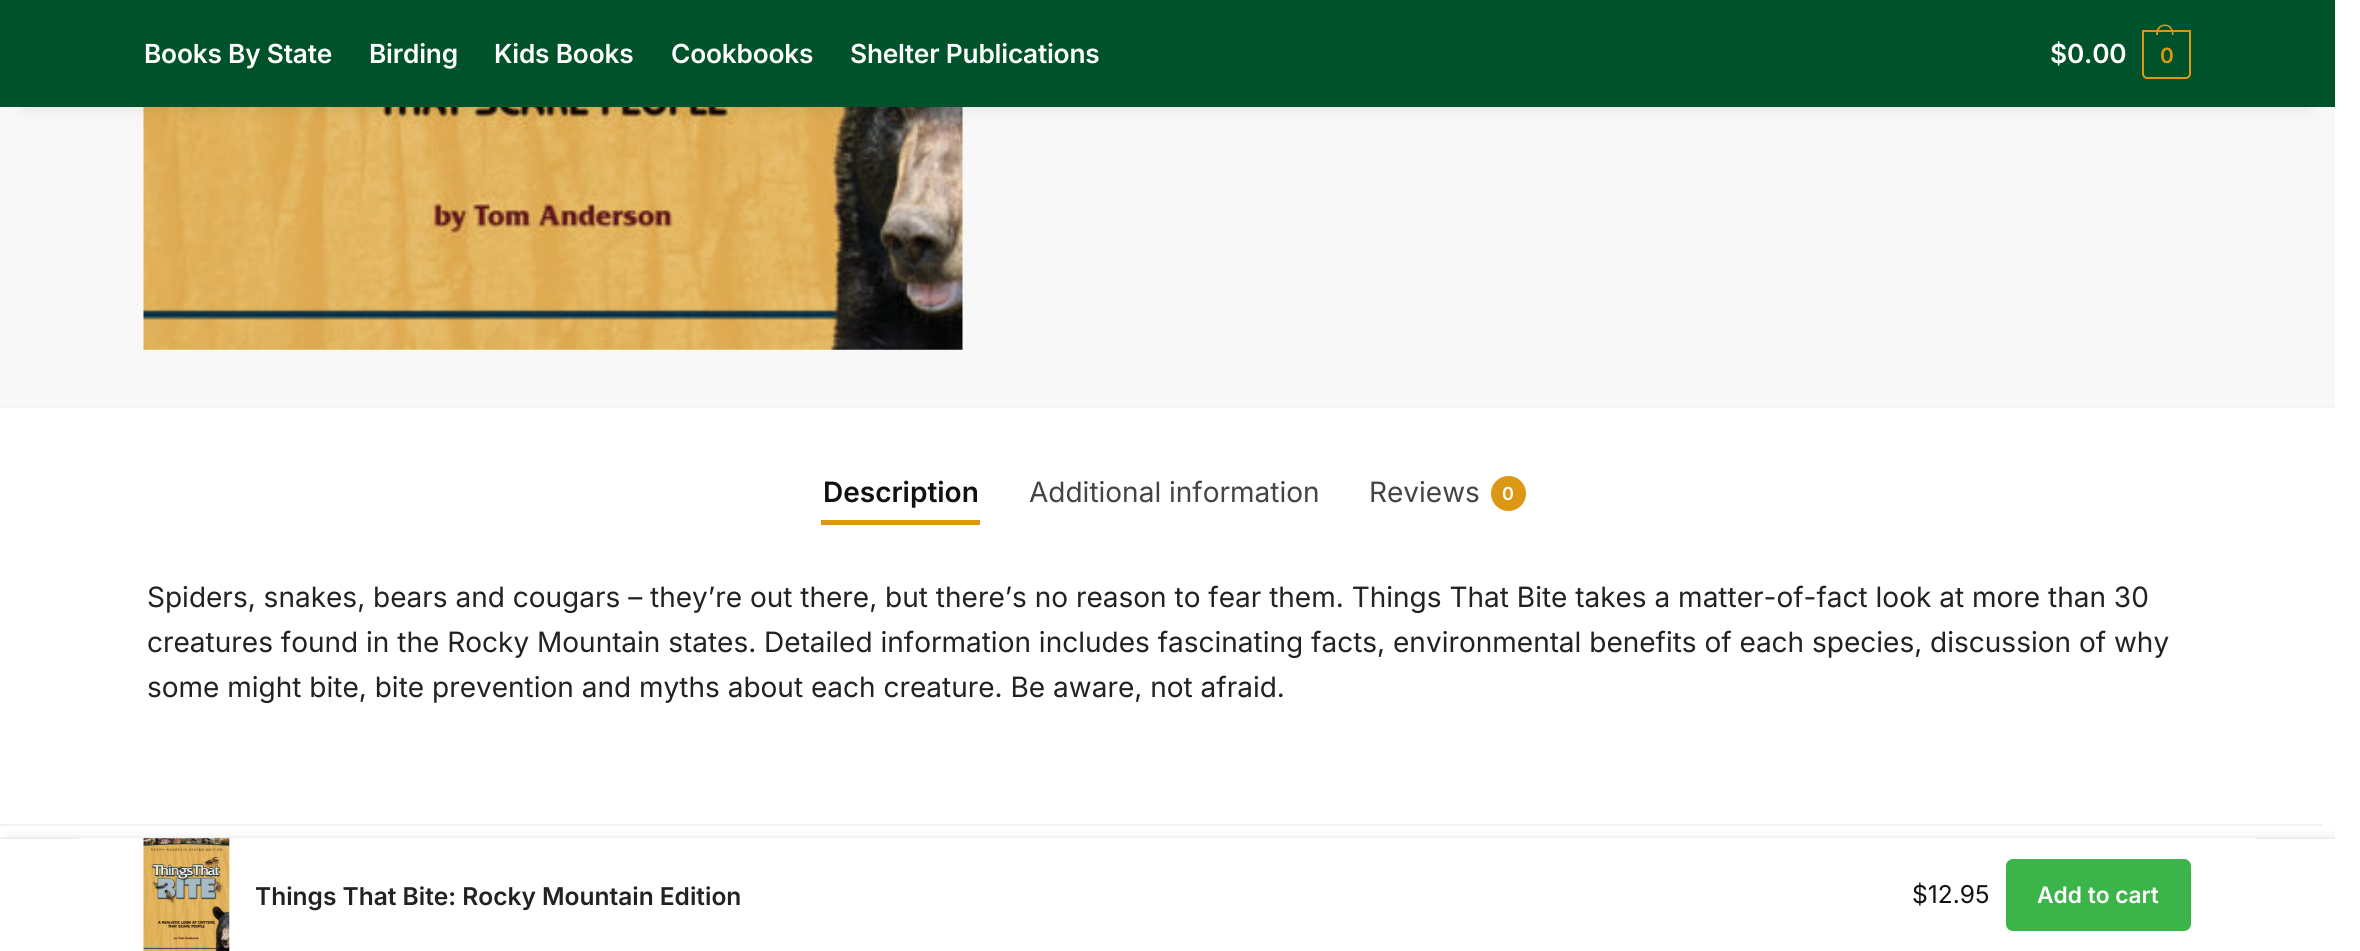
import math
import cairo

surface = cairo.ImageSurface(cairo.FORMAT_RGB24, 2360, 951)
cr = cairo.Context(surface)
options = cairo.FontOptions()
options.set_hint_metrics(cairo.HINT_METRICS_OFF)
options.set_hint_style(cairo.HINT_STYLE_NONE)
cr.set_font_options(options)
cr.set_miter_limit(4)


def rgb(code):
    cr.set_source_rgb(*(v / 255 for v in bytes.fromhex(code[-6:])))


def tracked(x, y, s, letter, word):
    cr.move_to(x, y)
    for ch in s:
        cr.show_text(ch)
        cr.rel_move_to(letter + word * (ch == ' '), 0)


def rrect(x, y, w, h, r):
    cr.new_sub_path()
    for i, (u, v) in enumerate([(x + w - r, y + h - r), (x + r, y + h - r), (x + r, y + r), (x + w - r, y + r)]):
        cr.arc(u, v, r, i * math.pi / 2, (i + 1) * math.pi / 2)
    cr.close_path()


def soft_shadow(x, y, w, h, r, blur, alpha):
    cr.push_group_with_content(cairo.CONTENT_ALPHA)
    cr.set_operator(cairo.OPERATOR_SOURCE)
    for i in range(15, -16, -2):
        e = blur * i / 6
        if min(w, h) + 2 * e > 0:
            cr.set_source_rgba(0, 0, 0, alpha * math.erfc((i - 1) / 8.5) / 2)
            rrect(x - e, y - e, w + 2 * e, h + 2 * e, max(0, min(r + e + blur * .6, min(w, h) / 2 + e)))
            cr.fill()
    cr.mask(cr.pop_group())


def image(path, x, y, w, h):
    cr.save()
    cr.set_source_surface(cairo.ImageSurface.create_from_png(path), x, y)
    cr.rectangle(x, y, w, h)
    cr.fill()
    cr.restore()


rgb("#f8f8f8")
cr.paint()
image("img/1.png", 143, 107, 820, 243)
rgb("#000000")
soft_shadow(26, 53, 2282, 54, 0, 9, 0.1)
rgb("#00522a")
cr.rectangle(0, 0, 2335, 107)
cr.fill()
cr.new_path()
cr.move_to(2143, 31)
cr.line_to(2190, 31)
cr.line_to(2190, 74)
cr.curve_to(2190, 76, 2188, 78, 2186, 78)
cr.line_to(2147, 78)
cr.curve_to(2145, 78, 2143, 76, 2143, 74)
cr.close_path()
rgb("#dc9814")
cr.stroke()
cr.set_fill_rule(cairo.FILL_RULE_EVEN_ODD)
cr.new_path()
cr.move_to(2165, 24.5)
cr.curve_to(2171, 24.5, 2173.5, 29.5, 2173.5, 35)
cr.line_to(2156, 35)
cr.curve_to(2156, 29.5, 2158.5, 24.5, 2165, 24.5)
cr.close_path()
cr.move_to(2165, 26)
cr.curve_to(2170, 26, 2172, 30.5, 2172, 35)
cr.line_to(2158, 35)
cr.curve_to(2158, 30.5, 2159.5, 26, 2165, 26)
cr.close_path()
cr.fill()
rgb("#ffffff")
cr.rectangle(0, 408, 2335, 429)
cr.fill()
rgb("#f2f2f2")
cr.rectangle(0, 824, 2322, 2)
cr.fill()
rgb("#1b1f23")
soft_shadow(9, 837, 2334, 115, 0, 4.5, 0.1)
for x, y, w, h, color in [
    (2335, 0, 25, 951, "#ffffff"),
    (0, 406, 2335, 2, "#f5f5f5"),
    (821, 520, 159, 5, "#dc9814"),
]:
    rgb(color)
    cr.rectangle(x, y, w, h)
    cr.fill()
cr.arc(1508.5, 493.5, 17.5, 0, 2 * math.pi)
cr.fill()
for x, y, w, h, color in [
    (0, 839, 2335, 112, "#ffffff"),
    (0, 837, 2335, 2, "#eeeeee"),
    (79, 838, 2177, 1, "#ffffff"),
]:
    rgb(color)
    cr.rectangle(x, y, w, h)
    cr.fill()
image("img/2.png", 143, 838, 87, 113)
rgb("#3bb54a")
rrect(2006, 859, 185, 72, 7)
cr.fill()
cr.select_font_face("Inter SemiBold")
cr.set_font_size(26.25)
rgb("#ffffff")
for x, y, s in [
    (144, 63, "Books By State"),
    (369, 63, "Birding"),
    (494, 63, "Kids Books"),
    (671, 63, "Cookbooks"),
    (850, 63, "Shelter Publications"),
    (2050, 63, "$0.00"),
]:
    tracked(x, y, s, -0.2, 0)
cr.set_font_size(21)
rgb("#dc9814")
tracked(2160, 63, "0", -1, 0)
cr.set_font_size(28)
rgb("#111111")
cr.move_to(823, 502)
cr.show_text("Description")
cr.select_font_face("Inter")
rgb("#444444")
cr.move_to(1029, 502)
cr.show_text("Additional information")
cr.move_to(1369, 502)
cr.show_text("Reviews")
cr.select_font_face("Inter SemiBold")
cr.set_font_size(18)
rgb("#ffffff")
cr.move_to(1502, 500)
cr.show_text("0")
cr.select_font_face("Inter")
cr.set_font_size(28)
rgb("#222222")
for x, y, s in [
    (147, 607, "Spiders, snakes, bears and cougars – they’re out there, but there’s no reason to fear them. Things That Bite takes a matter-of-fact look at more than 30"),
    (147, 652, "creatures found in the Rocky Mountain states. Detailed information includes fascinating facts, environmental benefits of each species, discussion of why"),
    (147, 697, "some might bite, bite prevention and myths about each creature. Be aware, not afraid."),
]:
    cr.move_to(x, y)
    cr.show_text(s)
cr.select_font_face("Inter SemiBold")
cr.set_font_size(24.5)
cr.move_to(255, 905)
cr.show_text("Things That Bite: Rocky Mountain Edition")
cr.select_font_face("Inter")
rgb("#111111")
cr.move_to(1912, 903)
cr.show_text("$12.95")
cr.select_font_face("Inter SemiBold")
cr.set_font_size(22.75)
rgb("#ffffff")
cr.move_to(2037, 903)
cr.show_text("Add to cart")
surface.write_to_png("page.png")
